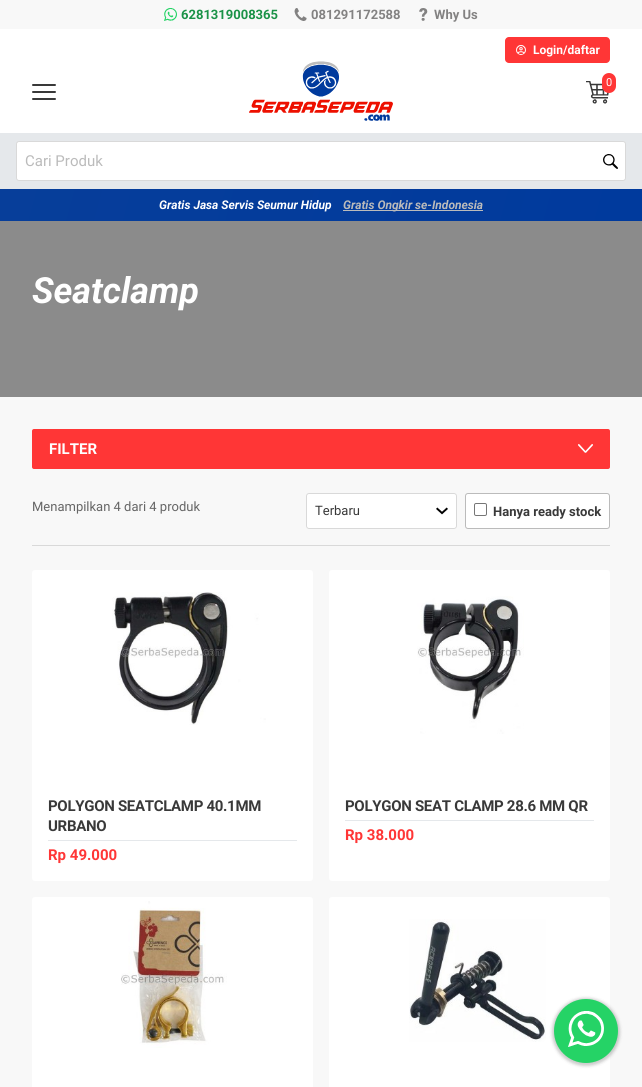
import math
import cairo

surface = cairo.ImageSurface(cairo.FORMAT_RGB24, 642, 1087)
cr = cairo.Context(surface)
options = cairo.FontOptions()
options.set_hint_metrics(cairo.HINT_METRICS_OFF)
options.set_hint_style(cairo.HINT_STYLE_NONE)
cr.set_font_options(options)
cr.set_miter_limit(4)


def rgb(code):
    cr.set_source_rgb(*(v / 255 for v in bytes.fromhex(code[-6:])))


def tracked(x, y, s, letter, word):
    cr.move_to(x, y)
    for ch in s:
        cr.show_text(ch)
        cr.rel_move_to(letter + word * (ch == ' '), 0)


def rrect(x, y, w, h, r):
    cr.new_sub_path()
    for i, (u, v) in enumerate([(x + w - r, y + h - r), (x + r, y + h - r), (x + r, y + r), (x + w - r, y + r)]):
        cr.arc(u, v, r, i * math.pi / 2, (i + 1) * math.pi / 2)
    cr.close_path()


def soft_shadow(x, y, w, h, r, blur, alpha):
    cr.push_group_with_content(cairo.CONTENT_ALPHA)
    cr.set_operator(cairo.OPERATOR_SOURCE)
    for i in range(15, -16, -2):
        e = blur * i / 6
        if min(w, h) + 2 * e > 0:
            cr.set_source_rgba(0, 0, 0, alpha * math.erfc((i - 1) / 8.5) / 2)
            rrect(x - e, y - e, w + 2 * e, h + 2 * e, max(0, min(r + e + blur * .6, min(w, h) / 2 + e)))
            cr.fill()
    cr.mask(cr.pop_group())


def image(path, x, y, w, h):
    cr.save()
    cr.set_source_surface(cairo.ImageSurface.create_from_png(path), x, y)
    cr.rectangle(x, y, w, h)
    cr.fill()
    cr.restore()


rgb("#ffffff")
cr.paint()
rgb("#f8f8f8")
cr.rectangle(0, 0, 642, 29)
cr.fill()
image("img/1.png", 164, 8, 13, 13)
image("img/2.png", 294, 8, 13, 13)
image("img/3.png", 419, 8, 9, 13)
rgb("#ff3636")
rrect(505, 37, 105, 26, 4)
cr.fill()
image("img/4.png", 516, 45, 10, 10)
image("img/5.png", 249, 61, 144, 60)
image("img/6.png", 586, 81, 23, 23)
rrect(602, 73, 14, 20, 7)
cr.fill()
image("img/7.png", 32, 84, 24, 16)
rgb("#e5e8eb")
cr.rectangle(0, 133, 642, 56)
cr.fill()
rgb("#ffffff")
rrect(16.5, 141.5, 609, 39, 2.5)
cr.fill_preserve()
rgb("#d9d9d9")
cr.set_line_width(1)
cr.stroke()
image("img/8.png", 603, 154, 15, 15)
gradient = cairo.LinearGradient(18, 124, 624, 286)
gradient.add_color_stop_rgba(0, 0.027, 0.243, 0.604, 1)
gradient.add_color_stop_rgba(1, 0, 0.227, 0.616, 1)
cr.set_source(gradient)
cr.rectangle(0, 189, 642, 32)
cr.fill()
for x, y, w, h, color in [
    (343, 210, 140, 1, "#bbbbbb"),
    (0, 397, 642, 690, "#f8f8f8"),
    (0, 221, 642, 176, "#8b8b8b"),
]:
    rgb(color)
    cr.rectangle(x, y, w, h)
    cr.fill()
rgb("#ff3636")
rrect(32, 429, 578, 40, 2)
cr.fill()
image("img/9.png", 578, 444, 15, 9)
rgb("#d9d9d9")
cr.rectangle(32, 545, 578, 1)
cr.fill()
rgb("#ffffff")
rrect(306, 493, 151, 36, 3)
cr.fill()
image("img/10.png", 436, 507, 12, 8)
rrect(306.5, 493.5, 150, 35, 2.5)
rgb("#d9d9d9")
cr.stroke()
rgb("#ffffff")
rrect(465.5, 493.5, 144, 35, 2.5)
cr.fill_preserve()
rgb("#bbbbbb")
cr.stroke()
rrect(474.5, 503.5, 12, 12, 1.5)
rgb("#767676")
cr.stroke()
rgb("#ffffff")
rrect(32, 570, 281, 311, 3)
cr.fill()
image("img/11.png", 112, 592, 154, 133)
rgb("#e5e8eb")
cr.rectangle(48, 840, 249, 1)
cr.fill()
rgb("#ffffff")
rrect(329, 570, 281, 311, 3)
cr.fill()
image("img/12.png", 417, 596, 107, 138)
rgb("#e5e8eb")
cr.rectangle(345, 820, 249, 1)
cr.fill()
rgb("#ffffff")
rrect(32, 897, 281, 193, 3)
cr.fill()
image("img/13.png", 121, 901, 106, 147)
rrect(329, 897, 281, 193, 3)
cr.fill()
image("img/14.png", 409, 919, 137, 123)
rgb("#000000")
soft_shadow(552, 998, 68, 68, 34, 1.5, 0.2)
rgb("#25d366")
cr.arc(586, 1031, 32, 0, 2 * math.pi)
cr.fill()
image("img/15.png", 568, 1011, 36, 36)
cr.select_font_face("Roboto", cairo.FONT_SLANT_NORMAL, cairo.FONT_WEIGHT_BOLD)
cr.set_font_size(13)
rgb("#1a9247")
cr.move_to(181, 19)
cr.show_text("6281319008365")
rgb("#838282")
cr.move_to(311, 19)
cr.show_text("081291172588")
cr.move_to(434, 19)
cr.show_text("Why Us")
cr.set_font_size(12)
rgb("#ffffff")
cr.move_to(533, 54)
cr.show_text("Login/daftar")
cr.select_font_face("Roboto")
cr.set_font_size(11)
cr.move_to(606, 86)
cr.show_text("0")
cr.set_font_size(15)
rgb("#bbbbbb")
cr.move_to(25, 166)
cr.show_text("Cari Produk")
cr.select_font_face("Roboto", cairo.FONT_SLANT_ITALIC, cairo.FONT_WEIGHT_BOLD)
cr.set_font_size(12)
rgb("#ffffff")
cr.move_to(159, 209)
cr.show_text("Gratis Jasa Servis Seumur Hidup")
rgb("#bbbbbb")
cr.move_to(343, 209)
cr.show_text("Gratis Ongkir se-Indonesia")
cr.set_font_size(36)
rgb("#ffffff")
cr.move_to(32, 303)
cr.show_text("Seatclamp")
cr.select_font_face("Roboto", cairo.FONT_SLANT_NORMAL, cairo.FONT_WEIGHT_BOLD)
cr.set_font_size(15)
cr.move_to(49, 454)
cr.show_text("FILTER")
cr.select_font_face("Roboto")
cr.set_font_size(13)
rgb("#666666")
cr.move_to(32, 511)
cr.show_text("Menampilkan 4 dari 4 produk")
rgb("#393939")
cr.move_to(315, 515)
cr.show_text("Terbaru")
cr.select_font_face("Roboto", cairo.FONT_SLANT_NORMAL, cairo.FONT_WEIGHT_BOLD)
cr.move_to(493, 516)
cr.show_text("Hanya ready stock")
cr.set_font_size(15)
tracked(48, 811, "POLYGON SEATCLAMP 40.1MM", -0.3, 0)
tracked(48, 831, "URBANO", -0.3, 0)
rgb("#ff3636")
cr.move_to(48, 860)
cr.show_text("Rp 49.000")
rgb("#393939")
tracked(345, 811, "POLYGON SEAT CLAMP 28.6 MM QR", -0.3, 0)
rgb("#ff3636")
cr.move_to(345, 840)
cr.show_text("Rp 38.000")
surface.write_to_png("page.png")
